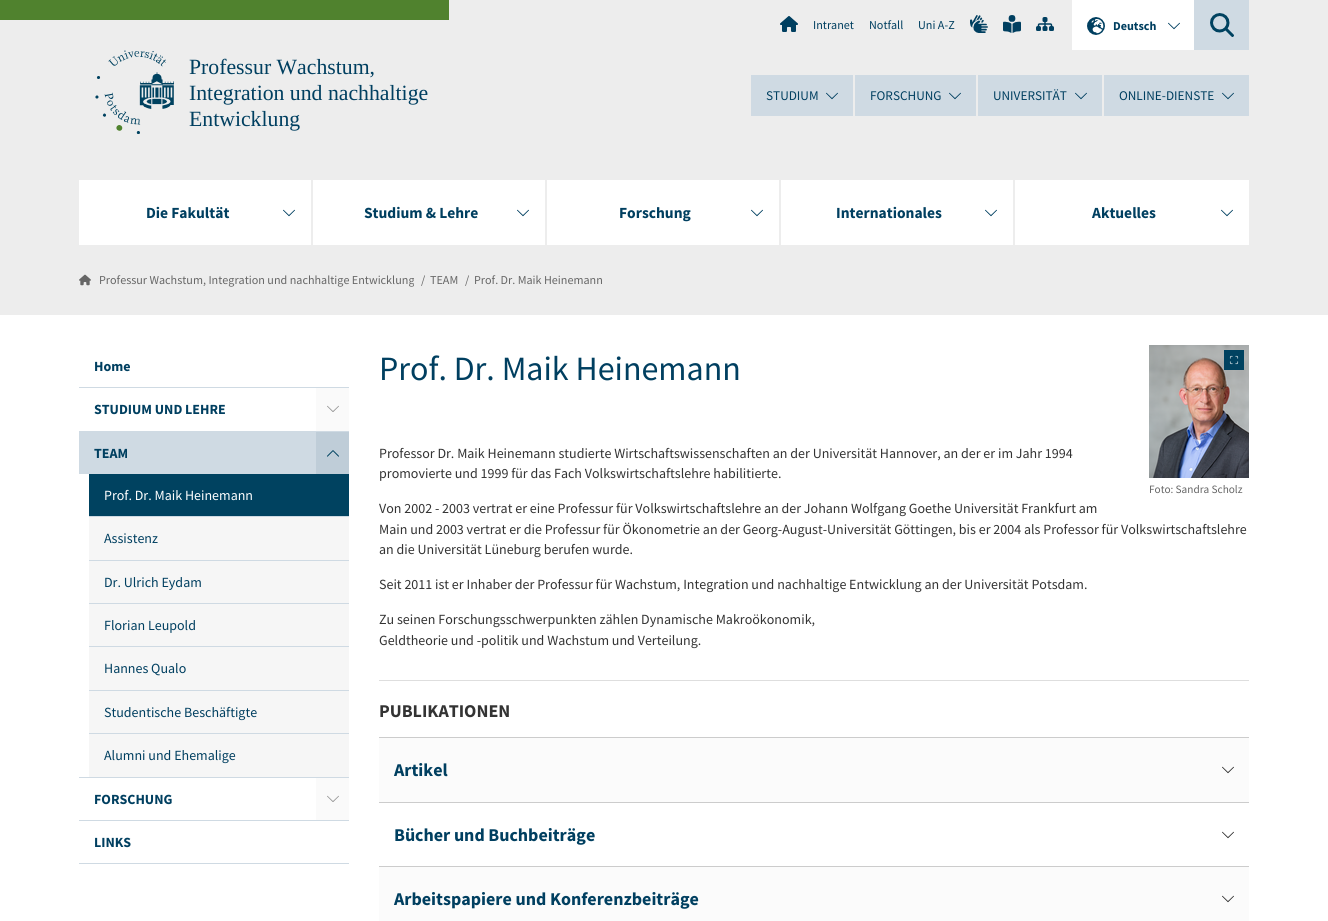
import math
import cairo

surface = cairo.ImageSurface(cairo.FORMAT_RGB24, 1328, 921)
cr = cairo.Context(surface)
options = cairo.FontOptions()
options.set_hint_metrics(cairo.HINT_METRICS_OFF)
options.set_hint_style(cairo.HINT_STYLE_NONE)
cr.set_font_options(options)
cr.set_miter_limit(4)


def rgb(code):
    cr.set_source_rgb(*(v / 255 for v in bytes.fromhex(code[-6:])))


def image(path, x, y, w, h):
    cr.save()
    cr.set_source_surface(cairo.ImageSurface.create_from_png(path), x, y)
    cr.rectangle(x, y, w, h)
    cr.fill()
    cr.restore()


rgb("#ffffff")
cr.paint()
rgb("#ededed")
cr.rectangle(0, 0, 1328, 315)
cr.fill()
rgb("#50822e")
cr.rectangle(0, 0, 449, 20)
cr.fill()
image("img/1.png", 95, 50, 79, 84)
image("img/2.png", 780, 16, 18, 16)
image("img/3.png", 970, 15, 18, 18)
image("img/4.png", 1003, 15, 18, 18)
image("img/5.png", 1036, 17, 18, 14)
rgb("#ffffff")
cr.rectangle(1072, 0, 122, 50)
cr.fill()
image("img/6.png", 1087, 17, 18, 18)
image("img/7.png", 1168, 22, 12, 8)
rgb("#cfdae3")
cr.rectangle(1194, 0, 55, 50)
cr.fill()
image("img/8.png", 1210, 13, 24, 24)
cr.rectangle(751, 75, 102, 41)
cr.fill()
image("img/9.png", 826, 92, 12, 8)
cr.rectangle(855, 75, 121, 41)
cr.fill()
image("img/9.png", 949, 92, 12, 8)
cr.rectangle(978, 75, 124, 41)
cr.fill()
image("img/9.png", 1075, 92, 12, 8)
cr.rectangle(1104, 75, 145, 41)
cr.fill()
image("img/9.png", 1222, 92, 12, 8)
rgb("#ffffff")
cr.rectangle(79, 180, 1170, 65)
cr.fill()
rgb("#ededed")
cr.rectangle(311, 180, 2, 65)
cr.fill()
image("img/7.png", 283, 209, 12, 8)
cr.rectangle(545, 180, 2, 65)
cr.fill()
image("img/7.png", 517, 209, 12, 8)
cr.rectangle(779, 180, 2, 65)
cr.fill()
image("img/7.png", 751, 209, 12, 8)
cr.rectangle(1013, 180, 2, 65)
cr.fill()
image("img/7.png", 985, 209, 12, 8)
image("img/7.png", 1221, 209, 12, 8)
image("img/10.png", 79, 274, 12, 12)
for x, y, w, h, color in [
    (79, 387, 270, 1, "#cfdae3"),
    (79, 431, 270, 1, "#cfdae3"),
    (316, 388, 33, 43, "#fafafa"),
]:
    rgb(color)
    cr.rectangle(x, y, w, h)
    cr.fill()
image("img/11.png", 327, 405, 12, 7)
for x, y, w, h, color in [
    (79, 777, 270, 1, "#cfdae3"),
    (316, 432, 33, 42, "#bfcdd8"),
    (79, 432, 237, 42, "#cfdae3"),
]:
    rgb(color)
    cr.rectangle(x, y, w, h)
    cr.fill()
image("img/12.png", 327, 450, 12, 7)
for x, y, w, h, color in [
    (89, 516, 260, 1, "#cfdae3"),
    (89, 474, 260, 42, "#004260"),
    (89, 560, 260, 1, "#cfdae3"),
    (89, 517, 260, 43, "#f6f6f6"),
    (89, 603, 260, 1, "#cfdae3"),
    (89, 561, 260, 42, "#f6f6f6"),
    (89, 646, 260, 1, "#cfdae3"),
    (89, 604, 260, 42, "#f6f6f6"),
    (89, 690, 260, 1, "#cfdae3"),
    (89, 647, 260, 43, "#f6f6f6"),
    (89, 733, 260, 1, "#cfdae3"),
    (89, 691, 260, 42, "#f6f6f6"),
    (89, 734, 260, 43, "#f6f6f6"),
    (79, 820, 270, 1, "#cfdae3"),
    (316, 778, 33, 42, "#fafafa"),
]:
    rgb(color)
    cr.rectangle(x, y, w, h)
    cr.fill()
image("img/11.png", 327, 795, 12, 7)
rgb("#cfdae3")
cr.rectangle(79, 863, 270, 1)
cr.fill()
image("img/13.png", 1149, 345, 100, 133)
rgb("#004260")
cr.rectangle(1224, 350, 20, 20)
cr.fill()
image("img/14.png", 1229, 355, 10, 10)
for x, y, w, h, color in [
    (379, 680, 870, 1, "#dedede"),
    (379, 737, 870, 1, "#cccccc"),
    (379, 738, 870, 64, "#fbfbfb"),
    (379, 802, 870, 1, "#cccccc"),
]:
    rgb(color)
    cr.rectangle(x, y, w, h)
    cr.fill()
image("img/15.png", 1222, 766, 12, 8)
cr.rectangle(379, 866, 870, 1)
cr.fill()
image("img/16.png", 1222, 831, 12, 8)
rgb("#fbfbfb")
cr.rectangle(379, 867, 870, 54)
cr.fill()
image("img/15.png", 1222, 895, 12, 8)
cr.select_font_face("Liberation Serif")
cr.set_font_size(21.75)
rgb("#003f60")
for x, y, s in [
    (189, 74, "Professur Wachstum,"),
    (189, 100, "Integration und nachhaltige"),
    (189, 126, "Entwicklung"),
]:
    cr.move_to(x, y)
    cr.show_text(s)
cr.select_font_face("Source Sans Pro")
cr.set_font_size(12.1)
for x, y, s in [
    (813, 29, "Intranet"),
    (869, 29, "Notfall"),
    (918, 29, "Uni A-Z"),
]:
    cr.move_to(x, y)
    cr.show_text(s)
cr.select_font_face("Source Sans Pro", cairo.FONT_SLANT_NORMAL, cairo.FONT_WEIGHT_BOLD)
cr.move_to(1113, 30)
cr.show_text("Deutsch")
cr.select_font_face("Source Sans Pro")
cr.set_font_size(13.25)
for x, y, s in [
    (766, 100, "STUDIUM"),
    (870, 100, "FORSCHUNG"),
    (993, 100, "UNIVERSITÄT"),
    (1119, 100, "ONLINE-DIENSTE"),
]:
    cr.move_to(x, y)
    cr.show_text(s)
cr.select_font_face("Source Sans Pro", cairo.FONT_SLANT_NORMAL, cairo.FONT_WEIGHT_BOLD)
cr.set_font_size(15.5)
for x, y, s in [
    (146, 218, "Die Fakultät"),
    (364, 218, "Studium & Lehre"),
    (619, 218, "Forschung"),
    (836, 218, "Internationales"),
    (1092, 218, "Aktuelles"),
]:
    cr.move_to(x, y)
    cr.show_text(s)
cr.select_font_face("Source Sans Pro")
cr.set_font_size(12.1)
rgb("#666666")
for x, y, s in [
    (99, 284, "Professur Wachstum, Integration und nachhaltige Entwicklung"),
    (421, 284, "/"),
    (430, 284, "TEAM"),
    (465, 284, "/"),
    (474, 284, "Prof. Dr. Maik Heinemann"),
]:
    cr.move_to(x, y)
    cr.show_text(s)
cr.select_font_face("Source Sans Pro", cairo.FONT_SLANT_NORMAL, cairo.FONT_WEIGHT_BOLD)
cr.set_font_size(14)
rgb("#003f60")
for x, y, s in [
    (94, 371, "Home"),
    (94, 414, "STUDIUM UND LEHRE"),
    (94, 458, "TEAM"),
]:
    cr.move_to(x, y)
    cr.show_text(s)
cr.select_font_face("Source Sans Pro")
rgb("#ffffff")
cr.move_to(104, 500)
cr.show_text("Prof. Dr. Maik Heinemann")
rgb("#003f60")
for x, y, s in [
    (104, 543, "Assistenz"),
    (104, 587, "Dr. Ulrich Eydam"),
    (104, 630, "Florian Leupold"),
    (104, 673, "Hannes Qualo"),
    (104, 717, "Studentische Beschäftigte"),
    (104, 760, "Alumni und Ehemalige"),
]:
    cr.move_to(x, y)
    cr.show_text(s)
cr.select_font_face("Source Sans Pro", cairo.FONT_SLANT_NORMAL, cairo.FONT_WEIGHT_BOLD)
cr.move_to(94, 804)
cr.show_text("FORSCHUNG")
cr.move_to(94, 847)
cr.show_text("LINKS")
cr.select_font_face("Source Sans Pro")
cr.set_font_size(34)
cr.move_to(379, 380)
cr.show_text("Prof. Dr. Maik Heinemann")
cr.set_font_size(14)
rgb("#333333")
for x, y, s in [
    (379, 458, "Professor Dr. Maik Heinemann studierte Wirtschaftswissenschaften an der Universität Hannover, an der er im Jahr 1994"),
    (379, 478, "promovierte und 1999 für das Fach Volkswirtschaftslehre habilitierte."),
    (379, 513, "Von 2002 - 2003 vertrat er eine Professur für Volkswirtschaftslehre an der Johann Wolfgang Goethe Universität Frankfurt am"),
    (379, 534, "Main und 2003 vertrat er die Professur für Ökonometrie an der Georg-August-Universität Göttingen, bis er 2004 als Professor für Volkswirtschaftslehre"),
    (379, 554, "an die Universität Lüneburg berufen wurde."),
    (379, 589, "Seit 2011 ist er Inhaber der Professur für Wachstum, Integration und nachhaltige Entwicklung an der Universität Potsdam."),
    (379, 624, "Zu seinen Forschungsschwerpunkten zählen Dynamische Makroökonomik,"),
    (379, 645, "Geldtheorie und -politik und Wachstum und Verteilung."),
]:
    cr.move_to(x, y)
    cr.show_text(s)
cr.set_font_size(11.25)
rgb("#666666")
cr.move_to(1149, 493)
cr.show_text("Foto: Sandra Scholz")
cr.select_font_face("Source Sans Pro", cairo.FONT_SLANT_NORMAL, cairo.FONT_WEIGHT_BOLD)
cr.set_font_size(18)
rgb("#333333")
cr.move_to(379, 717)
cr.show_text("PUBLIKATIONEN")
rgb("#003f60")
for x, y, s in [
    (394, 776, "Artikel"),
    (394, 841, "Bücher und Buchbeiträge"),
    (394, 905, "Arbeitspapiere und Konferenzbeiträge"),
]:
    cr.move_to(x, y)
    cr.show_text(s)
surface.write_to_png("page.png")
